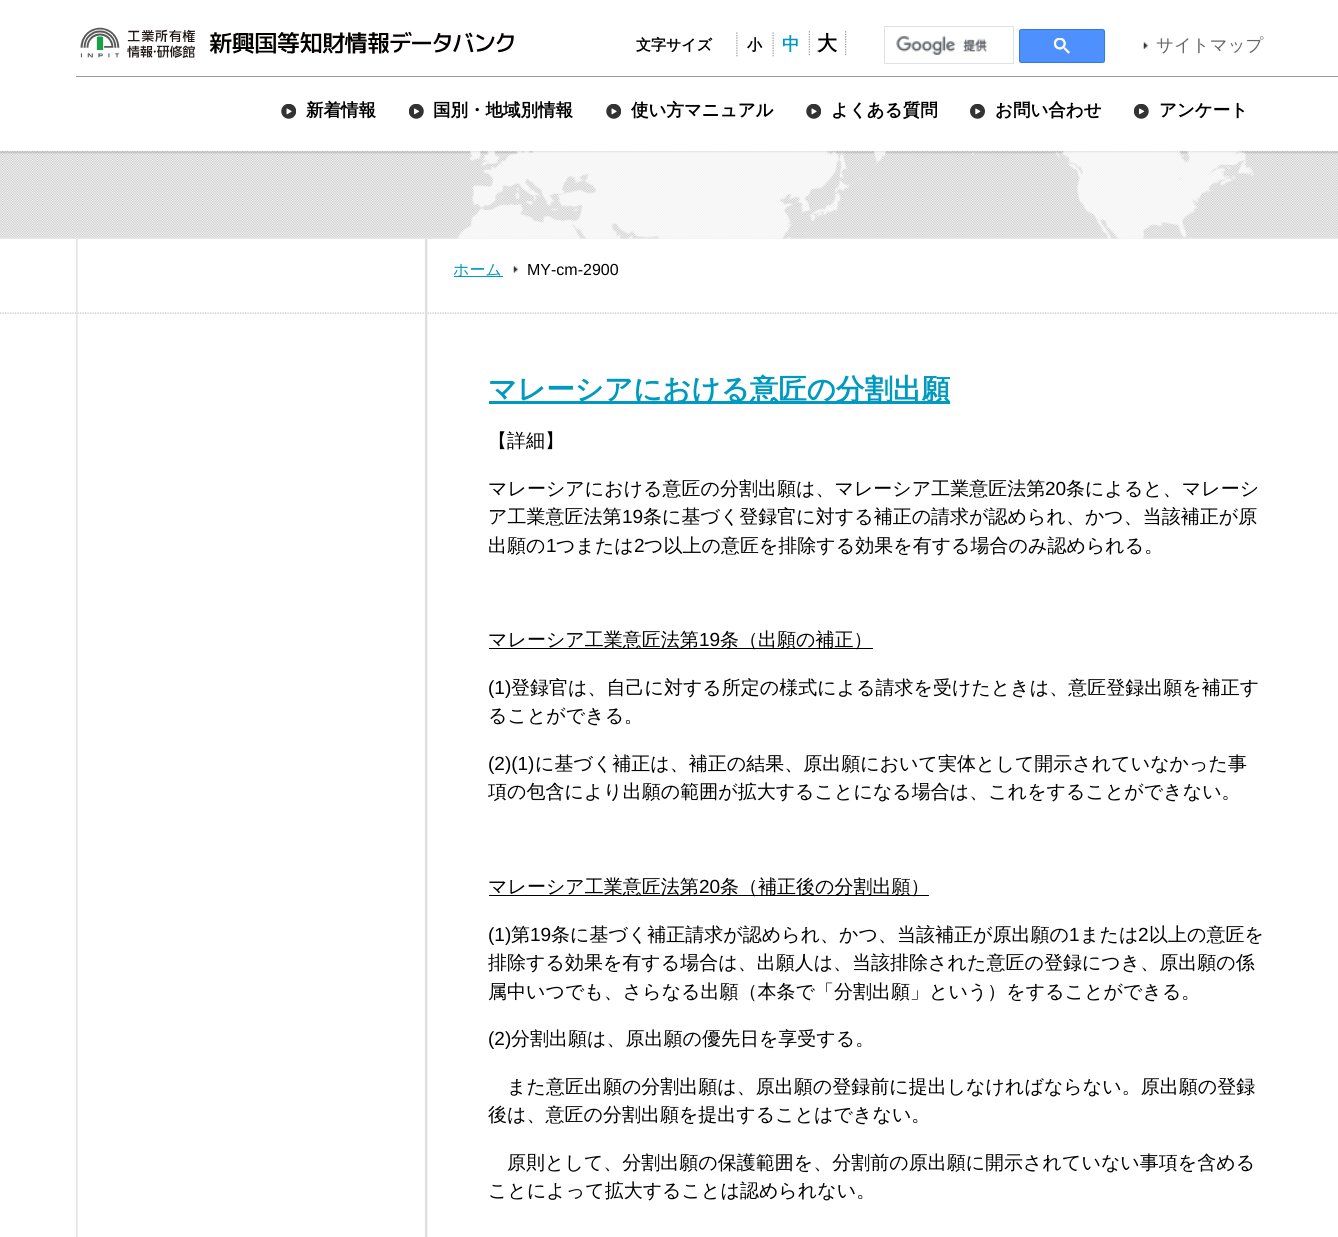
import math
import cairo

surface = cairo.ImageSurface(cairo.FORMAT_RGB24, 1338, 1237)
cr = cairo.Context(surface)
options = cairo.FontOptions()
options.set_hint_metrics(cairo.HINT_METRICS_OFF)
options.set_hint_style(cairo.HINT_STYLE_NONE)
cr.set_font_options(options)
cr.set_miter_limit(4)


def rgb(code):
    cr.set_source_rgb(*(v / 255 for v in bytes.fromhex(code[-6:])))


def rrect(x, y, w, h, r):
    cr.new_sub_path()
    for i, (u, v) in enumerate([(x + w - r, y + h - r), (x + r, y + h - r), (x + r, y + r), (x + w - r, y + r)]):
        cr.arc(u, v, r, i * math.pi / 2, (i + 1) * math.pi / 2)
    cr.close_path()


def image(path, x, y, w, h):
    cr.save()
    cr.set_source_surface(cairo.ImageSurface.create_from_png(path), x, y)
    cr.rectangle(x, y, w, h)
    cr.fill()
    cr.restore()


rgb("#ffffff")
cr.paint()
image("img/1.png", 80, 27, 434, 31)
image("img/2.png", 736, 32, 2, 25)
image("img/3.png", 772, 32, 2, 25)
image("img/4.png", 808, 31, 2, 24)
image("img/5.png", 845, 31, 2, 24)
cr.rectangle(884.5, 26.5, 129, 37)
rgb("#dfe1e5")
cr.set_line_width(1)
cr.stroke()
image("img/6.png", 896, 36, 91, 19)
rgb("#4d90fe")
rrect(1019.5, 29.5, 85, 33, 2)
cr.fill_preserve()
rgb("#3079ed")
cr.stroke()
image("img/7.png", 1054, 38, 16, 16)
image("img/8.png", 1143, 42, 5, 7)
rgb("#999999")
cr.rectangle(76, 76, 1262, 1)
cr.fill()
image("img/9.png", 281, 104, 15, 15)
image("img/10.png", 409, 104, 15, 15)
image("img/9.png", 606, 104, 15, 15)
image("img/9.png", 806, 104, 15, 15)
image("img/11.png", 970, 104, 15, 15)
image("img/10.png", 1134, 104, 15, 15)
image("img/12.png", 0, 151, 1338, 88)
image("img/13.png", 457, 151, 797, 88)
image("img/14.png", 0, 312, 1338, 2)
image("img/15.png", 76, 239, 352, 75)
rgb("#0099bf")
cr.rectangle(454, 276, 49, 1)
cr.fill()
image("img/16.png", 513, 266, 5, 7)
image("img/17.png", 76, 314, 352, 923)
for x, y, w, h, color in [
    (489, 401, 461, 3, "#0099bf"),
    (489, 648, 384, 1, "#000000"),
    (489, 895, 440, 1, "#000000"),
]:
    rgb(color)
    cr.rectangle(x, y, w, h)
    cr.fill()
cr.select_font_face("WenQuanYi Zen Hei", cairo.FONT_SLANT_NORMAL, cairo.FONT_WEIGHT_BOLD)
cr.set_font_size(15)
cr.move_to(636, 50)
cr.show_text("文字サイズ")
cr.move_to(747, 50)
cr.show_text("小")
cr.set_font_size(17.5)
rgb("#0099bf")
cr.move_to(782, 50)
cr.show_text("中")
cr.set_font_size(20)
rgb("#000000")
cr.move_to(817, 50)
cr.show_text("大")
cr.select_font_face("WenQuanYi Zen Hei Medium")
cr.set_font_size(17.5)
rgb("#666666")
cr.move_to(1156, 51)
cr.show_text("サイトマップ")
cr.select_font_face("WenQuanYi Zen Hei", cairo.FONT_SLANT_NORMAL, cairo.FONT_WEIGHT_BOLD)
rgb("#000000")
for x, y, s in [
    (306, 116, "新着情報"),
    (433, 116, "国別・地域別情報"),
    (631, 116, "使い方マニュアル"),
    (831, 116, "よくある質問"),
    (995, 116, "お問い合わせ"),
    (1159, 116, "アンケート"),
]:
    cr.move_to(x, y)
    cr.show_text(s)
cr.select_font_face("WenQuanYi Zen Hei Medium")
cr.set_font_size(16)
rgb("#0099bf")
cr.move_to(453, 275)
cr.show_text("ホーム")
cr.select_font_face("Liberation Sans")
rgb("#000000")
cr.move_to(527, 275)
cr.show_text("MY-cm-2900")
cr.select_font_face("WenQuanYi Zen Hei", cairo.FONT_SLANT_NORMAL, cairo.FONT_WEIGHT_BOLD)
cr.set_font_size(28.5)
rgb("#0099bf")
cr.move_to(488, 399)
cr.show_text("マレーシアにおける意匠の分割出願")
cr.select_font_face("WenQuanYi Zen Hei Medium")
cr.set_font_size(19)
rgb("#000000")
cr.move_to(488, 447)
cr.show_text("【詳細】")
cr.move_to(488, 495)
cr.show_text("マレーシアにおける意匠の分割出願は、マレーシア工業意匠法第")
cr.select_font_face("Liberation Sans")
cr.move_to(1045, 495)
cr.show_text("20")
cr.select_font_face("WenQuanYi Zen Hei Medium")
cr.move_to(1066, 495)
cr.show_text("条によると、マレーシ")
cr.move_to(488, 523)
cr.show_text("ア工業意匠法第")
cr.select_font_face("Liberation Sans")
cr.move_to(622, 523)
cr.show_text("19")
cr.select_font_face("WenQuanYi Zen Hei Medium")
cr.move_to(643, 523)
cr.show_text("条に基づく登録官に対する補正の請求が認められ、かつ、当該補正が原")
cr.move_to(488, 552)
cr.show_text("出願の")
cr.select_font_face("Liberation Sans")
cr.move_to(546, 552)
cr.show_text("1")
cr.select_font_face("WenQuanYi Zen Hei Medium")
cr.move_to(556, 552)
cr.show_text("つまたは")
cr.select_font_face("Liberation Sans")
cr.move_to(634, 552)
cr.show_text("2")
cr.select_font_face("WenQuanYi Zen Hei Medium")
cr.move_to(644, 552)
cr.show_text("つ以上の意匠を排除する効果を有する場合のみ認められる。")
cr.move_to(488, 646)
cr.show_text("マレーシア工業意匠法第")
cr.select_font_face("Liberation Sans")
cr.move_to(699, 646)
cr.show_text("19")
cr.select_font_face("WenQuanYi Zen Hei Medium")
cr.move_to(720, 646)
cr.show_text("条（出願の補正）")
cr.select_font_face("Liberation Sans")
cr.move_to(488, 694)
cr.show_text("(1)")
cr.select_font_face("WenQuanYi Zen Hei Medium")
cr.move_to(511, 694)
cr.show_text("登録官は、自己に対する所定の様式による請求を受けたときは、意匠登録出願を補正す")
cr.move_to(488, 722)
cr.show_text("ることができる。")
cr.select_font_face("Liberation Sans")
cr.move_to(488, 770)
cr.show_text("(2)(1)")
cr.select_font_face("WenQuanYi Zen Hei Medium")
for x, y, s in [
    (535, 770, "に基づく補正は、補正の結果、原出願において実体として開示されていなかった事"),
    (488, 798, "項の包含により出願の範囲が拡大することになる場合は、これをすることができない。"),
    (488, 893, "マレーシア工業意匠法第"),
]:
    cr.move_to(x, y)
    cr.show_text(s)
cr.select_font_face("Liberation Sans")
cr.move_to(699, 893)
cr.show_text("20")
cr.select_font_face("WenQuanYi Zen Hei Medium")
cr.move_to(720, 893)
cr.show_text("条（補正後の分割出願）")
cr.select_font_face("Liberation Sans")
cr.move_to(488, 941)
cr.show_text("(1)")
cr.select_font_face("WenQuanYi Zen Hei Medium")
cr.move_to(511, 941)
cr.show_text("第")
cr.select_font_face("Liberation Sans")
cr.move_to(530, 941)
cr.show_text("19")
cr.select_font_face("WenQuanYi Zen Hei Medium")
cr.move_to(551, 941)
cr.show_text("条に基づく補正請求が認められ、かつ、当該補正が原出願の")
cr.select_font_face("Liberation Sans")
cr.move_to(1069, 941)
cr.show_text("1")
cr.select_font_face("WenQuanYi Zen Hei Medium")
cr.move_to(1080, 941)
cr.show_text("または")
cr.select_font_face("Liberation Sans")
cr.move_to(1138, 941)
cr.show_text("2")
cr.select_font_face("WenQuanYi Zen Hei Medium")
for x, y, s in [
    (1149, 941, "以上の意匠を"),
    (488, 969, "排除する効果を有する場合は、出願人は、当該排除された意匠の登録につき、原出願の係"),
    (488, 998, "属中いつでも、さらなる出願（本条で「分割出願」という）をすることができる。"),
]:
    cr.move_to(x, y)
    cr.show_text(s)
cr.select_font_face("Liberation Sans")
cr.move_to(488, 1045)
cr.show_text("(2)")
cr.select_font_face("WenQuanYi Zen Hei Medium")
for x, y, s in [
    (511, 1045, "分割出願は、原出願の優先日を享受する。"),
    (507, 1093, "また意匠出願の分割出願は、原出願の登録前に提出しなければならない。原出願の登録"),
    (488, 1121, "後は、意匠の分割出願を提出することはできない。"),
    (507, 1169, "原則として、分割出願の保護範囲を、分割前の原出願に開示されていない事項を含める"),
    (488, 1197, "ことによって拡大することは認められない。"),
]:
    cr.move_to(x, y)
    cr.show_text(s)
surface.write_to_png("page.png")
